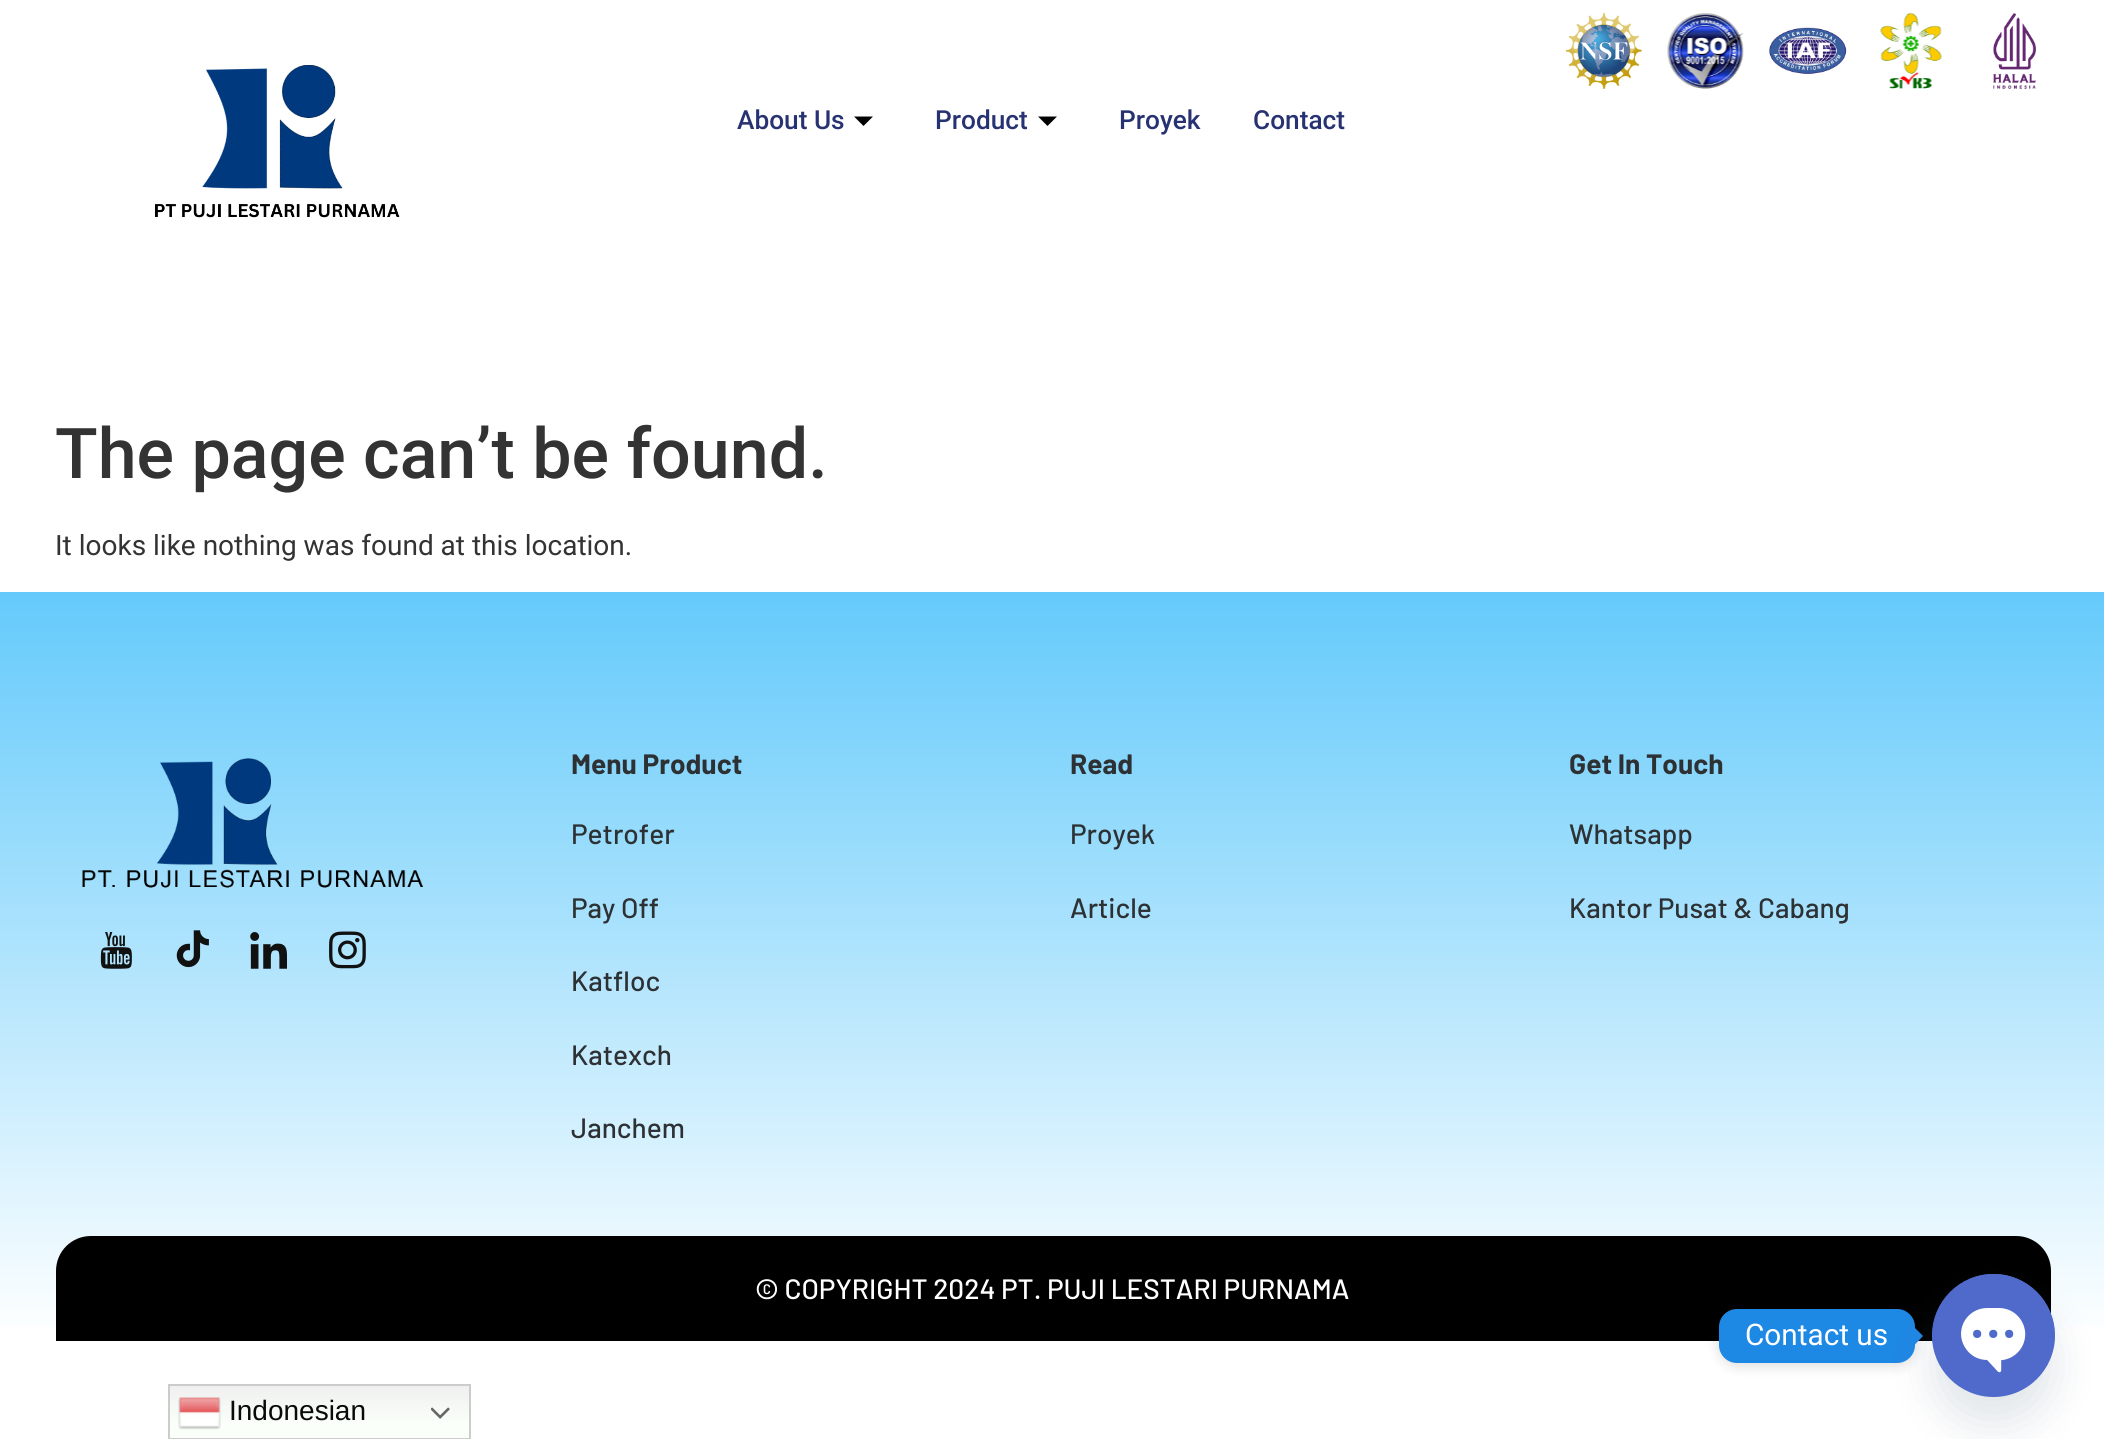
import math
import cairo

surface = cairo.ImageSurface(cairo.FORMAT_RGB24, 2104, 1439)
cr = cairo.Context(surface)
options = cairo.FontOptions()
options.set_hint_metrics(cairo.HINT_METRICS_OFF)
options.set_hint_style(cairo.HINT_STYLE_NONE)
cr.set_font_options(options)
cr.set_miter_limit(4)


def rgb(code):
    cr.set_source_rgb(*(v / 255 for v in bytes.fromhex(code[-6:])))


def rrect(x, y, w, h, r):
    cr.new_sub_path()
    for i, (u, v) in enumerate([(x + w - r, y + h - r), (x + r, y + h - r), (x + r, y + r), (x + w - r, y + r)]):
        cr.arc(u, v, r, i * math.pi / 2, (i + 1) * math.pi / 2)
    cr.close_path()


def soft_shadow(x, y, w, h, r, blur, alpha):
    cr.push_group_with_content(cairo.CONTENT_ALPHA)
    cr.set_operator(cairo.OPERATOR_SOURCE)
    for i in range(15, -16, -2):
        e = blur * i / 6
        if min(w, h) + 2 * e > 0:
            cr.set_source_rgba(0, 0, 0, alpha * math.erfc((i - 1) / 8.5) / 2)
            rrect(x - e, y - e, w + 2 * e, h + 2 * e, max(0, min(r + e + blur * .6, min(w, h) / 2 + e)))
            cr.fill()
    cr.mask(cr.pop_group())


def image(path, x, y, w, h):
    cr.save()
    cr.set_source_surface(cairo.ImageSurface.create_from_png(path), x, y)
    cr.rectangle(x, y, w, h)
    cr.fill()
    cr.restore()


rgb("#ffffff")
cr.paint()
image("img/1.png", 1565, 13, 77, 76)
image("img/2.png", 1667, 13, 77, 76)
image("img/3.png", 1769, 27, 78, 47)
image("img/4.png", 1880, 13, 62, 76)
image("img/5.png", 1993, 13, 43, 76)
image("img/6.png", 155, 65, 245, 153)
rgb("#000000")
cr.new_path()
cr.move_to(854, 116.5)
cr.line_to(873, 116.5)
cr.line_to(863.5, 126)
cr.close_path()
cr.fill()
cr.new_path()
cr.move_to(1038, 116.5)
cr.line_to(1057, 116.5)
cr.line_to(1047.5, 126)
cr.close_path()
cr.fill()
gradient = cairo.LinearGradient(1053, 591, 1053, 1341)
gradient.add_color_stop_rgba(0, 0.392, 0.792, 0.984, 1)
gradient.add_color_stop_rgba(1, 1, 1, 1, 1)
cr.set_source(gradient)
cr.rectangle(0, 592, 2104, 737)
cr.fill()
image("img/7.png", 82, 758, 342, 130)
image("img/8.png", 100, 932, 32, 37)
image("img/9.png", 176, 930, 33, 38)
image("img/10.png", 250, 932, 37, 37)
image("img/11.png", 329, 931, 37, 38)
rgb("#000000")
cr.new_path()
cr.move_to(91, 1236)
cr.line_to(2016, 1236)
cr.curve_to(2035.5, 1236, 2051, 1251.5, 2051, 1271)
cr.line_to(2051, 1341)
cr.line_to(56, 1341)
cr.line_to(56, 1271)
cr.curve_to(56, 1251.5, 71.5, 1236, 91, 1236)
cr.close_path()
cr.fill()
rgb("#000000")
soft_shadow(1719, 1311, 196, 54, 18, 7, 0.15)
rgb("#1e88e5")
rrect(1719, 1309, 196, 54, 18)
cr.fill()
cr.new_path()
cr.move_to(1914.5, 1345)
cr.line_to(1914.5, 1327.5)
cr.line_to(1923, 1336)
cr.close_path()
cr.fill()
rgb("#49687e")
soft_shadow(1932, 1302, 123, 123, 61.5, 21, 0.16)
rgb("#4f6aca")
cr.arc(1993.5, 1335.5, 61.5, 0, 2 * math.pi)
cr.fill()
image("img/12.png", 1932, 1274, 123, 99)
gradient = cairo.LinearGradient(319, 1384, 319, 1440)
gradient.add_color_stop_rgba(0, 0.937, 0.937, 0.937, 1)
gradient.add_color_stop_rgba(0.7, 0.98, 1, 0.976, 1)
cr.set_source(gradient)
cr.rectangle(170, 1386, 299, 52)
cr.fill()
cr.rectangle(169, 1385, 301, 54)
rgb("#cccccc")
cr.stroke()
image("img/13.png", 178, 1397, 43, 33)
image("img/14.png", 431, 1407, 19, 12)
cr.select_font_face("Roboto Medium")
cr.set_font_size(26.25)
rgb("#273272")
for x, y, s in [
    (737, 129, "About Us"),
    (935, 129, "Product"),
    (1119, 129, "Proyek"),
    (1253, 129, "Contact"),
]:
    cr.move_to(x, y)
    cr.show_text(s)
cr.set_font_size(70)
rgb("#333333")
cr.move_to(55, 478)
cr.show_text("The page can’t be found.")
cr.select_font_face("Roboto")
cr.set_font_size(28)
cr.move_to(55, 555)
cr.show_text("It looks like nothing was found at this location.")
cr.select_font_face("Barlow", cairo.FONT_SLANT_NORMAL, cairo.FONT_WEIGHT_BOLD)
rgb("#2d3134")
cr.move_to(571, 774)
cr.show_text("Menu Product")
cr.select_font_face("Barlow Medium")
for x, y, s in [
    (571, 844, "Petrofer"),
    (571, 918, "Pay Off"),
    (571, 991, "Katfloc"),
    (571, 1065, "Katexch"),
    (571, 1138, "Janchem"),
]:
    cr.move_to(x, y)
    cr.show_text(s)
cr.select_font_face("Barlow", cairo.FONT_SLANT_NORMAL, cairo.FONT_WEIGHT_BOLD)
cr.move_to(1070, 774)
cr.show_text("Read")
cr.select_font_face("Barlow Medium")
cr.move_to(1070, 844)
cr.show_text("Proyek")
cr.move_to(1070, 918)
cr.show_text("Article")
cr.select_font_face("Barlow", cairo.FONT_SLANT_NORMAL, cairo.FONT_WEIGHT_BOLD)
cr.move_to(1569, 774)
cr.show_text("Get In Touch")
cr.select_font_face("Barlow Medium")
cr.move_to(1569, 844)
cr.show_text("Whatsapp")
cr.move_to(1569, 918)
cr.show_text("Kantor Pusat & Cabang")
rgb("#ffffff")
cr.move_to(755, 1299)
cr.show_text("© COPYRIGHT 2024 PT. PUJI LESTARI PURNAMA")
cr.select_font_face("Roboto")
cr.set_font_size(29.75)
cr.move_to(1745, 1345)
cr.show_text("Contact us")
cr.select_font_face("Liberation Sans")
cr.set_font_size(28)
rgb("#0a0a0a")
cr.move_to(229, 1420)
cr.show_text("Indonesian")
surface.write_to_png("page.png")
